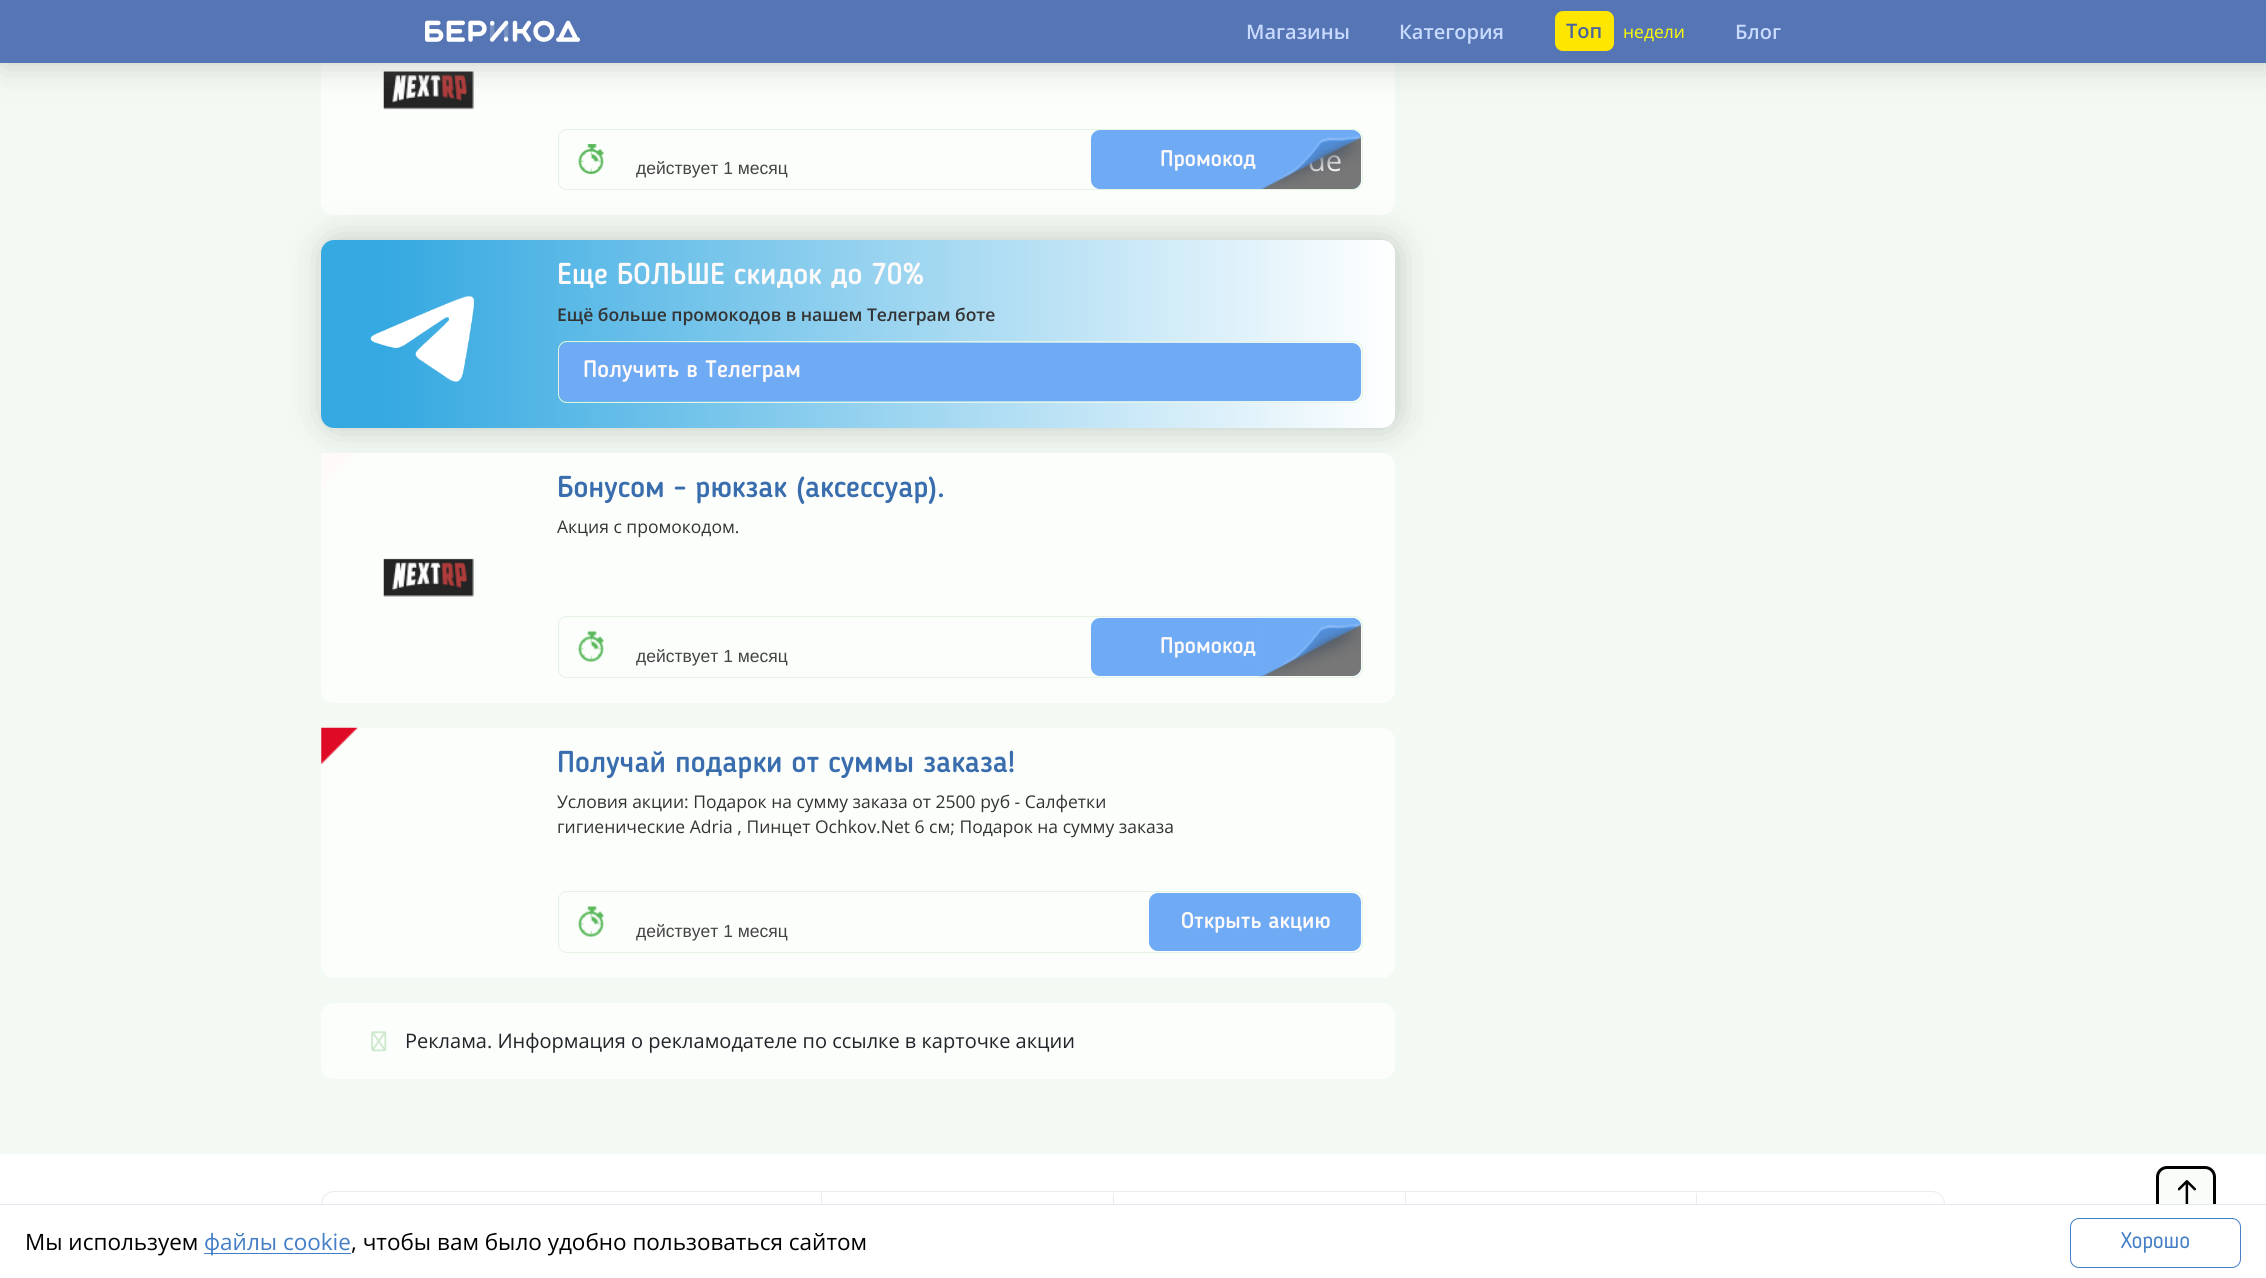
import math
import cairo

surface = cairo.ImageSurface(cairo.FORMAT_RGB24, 2266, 1278)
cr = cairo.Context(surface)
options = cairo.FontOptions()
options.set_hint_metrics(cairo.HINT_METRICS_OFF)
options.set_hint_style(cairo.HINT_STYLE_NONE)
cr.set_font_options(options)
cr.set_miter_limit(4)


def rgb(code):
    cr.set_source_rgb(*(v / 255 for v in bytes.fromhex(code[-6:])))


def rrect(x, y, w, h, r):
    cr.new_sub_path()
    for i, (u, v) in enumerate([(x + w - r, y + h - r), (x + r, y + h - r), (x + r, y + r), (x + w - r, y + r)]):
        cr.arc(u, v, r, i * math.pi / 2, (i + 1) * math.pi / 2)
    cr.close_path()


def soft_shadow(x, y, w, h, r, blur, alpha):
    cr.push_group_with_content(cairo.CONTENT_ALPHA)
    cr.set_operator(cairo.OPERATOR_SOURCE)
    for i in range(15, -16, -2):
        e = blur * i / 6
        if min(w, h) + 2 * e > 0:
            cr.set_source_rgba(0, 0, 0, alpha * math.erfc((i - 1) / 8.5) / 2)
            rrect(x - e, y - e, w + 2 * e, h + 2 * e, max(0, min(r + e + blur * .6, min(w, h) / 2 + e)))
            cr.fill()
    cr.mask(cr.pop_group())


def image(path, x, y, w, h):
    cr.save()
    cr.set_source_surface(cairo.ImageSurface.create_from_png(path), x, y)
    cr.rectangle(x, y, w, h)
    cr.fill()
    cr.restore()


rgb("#ffffff")
cr.paint()
rgb("#f3faf3")
cr.rectangle(0, 63, 2266, 1091)
cr.fill()
rgb("#fbfefb")
rrect(321, -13, 1074, 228, 13)
cr.fill()
image("img/2.png", 383, 71, 91, 39)
rgb("#787878")
soft_shadow(3, 0, 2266, 63, 0, 17, 0.4)
rgb("#5675b4")
cr.rectangle(0, 0, 2266, 63)
cr.fill()
image("img/1.png", 425, 20, 155, 22)
rgb("#ffe600")
rrect(1555, 11, 59, 40, 8)
cr.fill()
rrect(558.5, 129.5, 804, 60, 8.5)
rgb("#e4f3e4")
cr.set_line_width(1)
cr.stroke()
image("img/3.png", 578, 144, 26, 30)
rgb("#6fabf5")
rrect(1091, 130, 270, 59, 9)
cr.fill()
rgb("#777777")
cr.new_path()
cr.move_to(1261, 131)
cr.line_to(1352, 131)
cr.curve_to(1357, 131, 1361, 135, 1361, 140)
cr.line_to(1361, 180)
cr.curve_to(1361, 185, 1357, 189, 1352, 189)
cr.line_to(1261, 189)
cr.close_path()
cr.fill()
rgb("#fbfefb")
rrect(321, 728, 1074, 250, 13)
cr.fill()
image("img/10.png", 321, 727, 37, 38)
rrect(558.5, 891.5, 804, 61, 8.5)
rgb("#e4f3e4")
cr.stroke()
image("img/8.png", 578, 906, 26, 31)
rgb("#6fabf5")
rrect(1149, 893, 212, 58, 9)
cr.fill()
rgb("#fbfefb")
rrect(321, 1003, 1074, 76, 13)
cr.fill()
image("img/11.png", 371, 1031, 16, 21)
rrect(321.5, 1191.5, 1623, 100, 12.5)
rgb("#ebebeb")
cr.stroke()
for x, y, w, h, color in [
    (821, 1193, 1, 11, "#ebebeb"),
    (1113, 1193, 1, 11, "#ebebeb"),
    (1405, 1193, 1, 11, "#ebebeb"),
    (1696, 1193, 1, 11, "#ebebeb"),
]:
    rgb(color)
    cr.rectangle(x, y, w, h)
    cr.fill()
rgb("#f9fcf9")
rrect(2156, 1166, 60, 60, 11)
cr.fill()
image("img/12.png", 2178, 1180, 18, 24)
rrect(2157.5, 1167.5, 57, 57, 9.5)
rgb("#000000")
cr.set_line_width(3)
cr.stroke()
for x, y, w, h, color in [
    (321, 1205, 1895, 73, "#ffffff"),
    (0, 1204, 2266, 1, "#e2e8f0"),
    (204, 1253, 147, 1, "#437ec6"),
]:
    rgb(color)
    cr.rectangle(x, y, w, h)
    cr.fill()
rrect(2070.5, 1218.5, 170, 49, 8.5)
cr.set_line_width(1)
cr.stroke()
cr.select_font_face("Open Sans SemiBold")
cr.set_font_size(20)
rgb("#c8daff")
cr.move_to(1246, 39)
cr.show_text("Магазины")
cr.move_to(1399, 39)
cr.show_text("Категория")
rgb("#4a659d")
cr.move_to(1566, 38)
cr.show_text("Топ")
cr.select_font_face("Open Sans")
cr.set_font_size(17.5)
rgb("#ffff00")
cr.move_to(1623, 38)
cr.show_text("недели")
cr.select_font_face("Open Sans SemiBold")
cr.set_font_size(20)
rgb("#c8daff")
cr.move_to(1735, 39)
cr.show_text("Блог")
cr.select_font_face("Liberation Sans")
cr.set_font_size(17.5)
rgb("#444444")
cr.move_to(636, 174)
cr.show_text("действует 1 месяц")
cr.select_font_face("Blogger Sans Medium")
cr.set_font_size(22.5)
rgb("#fffafa")
cr.move_to(1160, 166)
cr.show_text("Промокод")
cr.select_font_face("Open Sans")
cr.set_font_size(29)
cr.move_to(1308, 171)
cr.show_text("de")
image("img/4.png", 1261, 130, 100, 59)
rgb("#787878")
soft_shadow(324, 240, 1074, 188, 13, 17, 0.4)
gradient = cairo.LinearGradient(321, 334, 1395, 334)
gradient.add_color_stop_rgba(0.06, 0.208, 0.663, 0.882, 1)
gradient.add_color_stop_rgba(1, 1, 1, 1, 1)
cr.set_source(gradient)
rrect(321, 240, 1074, 188, 13)
cr.fill()
image("img/5.png", 370, 296, 104, 86)
cr.select_font_face("Blogger Sans Medium")
cr.set_font_size(30)
rgb("#fffafa")
cr.move_to(557, 284)
cr.show_text("Еще БОЛЬШЕ скидок до 70%")
cr.select_font_face("Open Sans SemiBold")
cr.set_font_size(17.5)
rgb("#333333")
cr.move_to(557, 321)
cr.show_text("Ещё больше промокодов в нашем Телеграм боте")
rrect(558.5, 341.5, 804, 61, 8.5)
rgb("#e4f3e4")
cr.stroke()
rgb("#6fabf5")
rrect(559, 343, 802, 58, 9)
cr.fill()
cr.select_font_face("Blogger Sans Medium")
cr.set_font_size(23.75)
rgb("#fffafa")
cr.move_to(583, 377)
cr.show_text("Получить в Телеграм")
rgb("#fbfefb")
rrect(321, 453, 1074, 250, 13)
cr.fill()
image("img/6.png", 321, 453, 33, 35)
image("img/7.png", 383, 558, 91, 39)
cr.set_font_size(30)
rgb("#396dad")
cr.move_to(557, 497)
cr.show_text("Бонусом - рюкзак (аксессуар).")
cr.select_font_face("Open Sans")
cr.set_font_size(17.5)
rgb("#333333")
cr.move_to(557, 533)
cr.show_text("Акция с промокодом.")
rrect(558.5, 616.5, 804, 61, 8.5)
rgb("#e4f3e4")
cr.stroke()
image("img/8.png", 578, 631, 26, 31)
cr.select_font_face("Liberation Sans")
rgb("#444444")
cr.move_to(636, 662)
cr.show_text("действует 1 месяц")
rgb("#6fabf5")
rrect(1091, 618, 270, 58, 9)
cr.fill()
cr.select_font_face("Blogger Sans Medium")
cr.set_font_size(22.5)
rgb("#fffafa")
cr.move_to(1160, 653)
cr.show_text("Промокод")
rgb("#777777")
cr.new_path()
cr.move_to(1261, 619)
cr.line_to(1352, 619)
cr.curve_to(1357, 619, 1361, 623, 1361, 628)
cr.line_to(1361, 667)
cr.curve_to(1361, 672, 1357, 676, 1352, 676)
cr.line_to(1261, 676)
cr.close_path()
cr.fill()
image("img/9.png", 1258, 617, 103, 60)
cr.set_font_size(30)
rgb("#396dad")
cr.move_to(557, 772)
cr.show_text("Получай подарки от суммы заказа!")
cr.select_font_face("Open Sans")
cr.set_font_size(17.5)
rgb("#333333")
cr.move_to(557, 808)
cr.show_text("Условия акции: Подарок на сумму заказа от 2500 руб - Салфетки")
cr.move_to(557, 833)
cr.show_text("гигиенические Adria , Пинцет Ochkov.Net 6 см; Подарок на сумму заказа")
cr.select_font_face("Liberation Sans")
rgb("#444444")
cr.move_to(636, 937)
cr.show_text("действует 1 месяц")
cr.select_font_face("Blogger Sans Medium")
cr.set_font_size(22.5)
rgb("#fffafa")
cr.move_to(1181, 928)
cr.show_text("Открыть акцию")
cr.select_font_face("Open Sans")
cr.set_font_size(20)
rgb("#212529")
cr.move_to(405, 1048)
cr.show_text("Реклама. Информация о рекламодателе по ссылке в карточке акции")
cr.set_font_size(22.5)
rgb("#000000")
cr.move_to(25, 1250)
cr.show_text("Мы используем")
rgb("#437ec6")
cr.move_to(204, 1250)
cr.show_text("файлы cookie")
rgb("#000000")
cr.move_to(351, 1250)
cr.show_text(", чтобы вам было удобно пользоваться сайтом")
cr.select_font_face("Blogger Sans")
rgb("#437ec6")
cr.move_to(2121, 1248)
cr.show_text("Хорошо")
surface.write_to_png("page.png")
